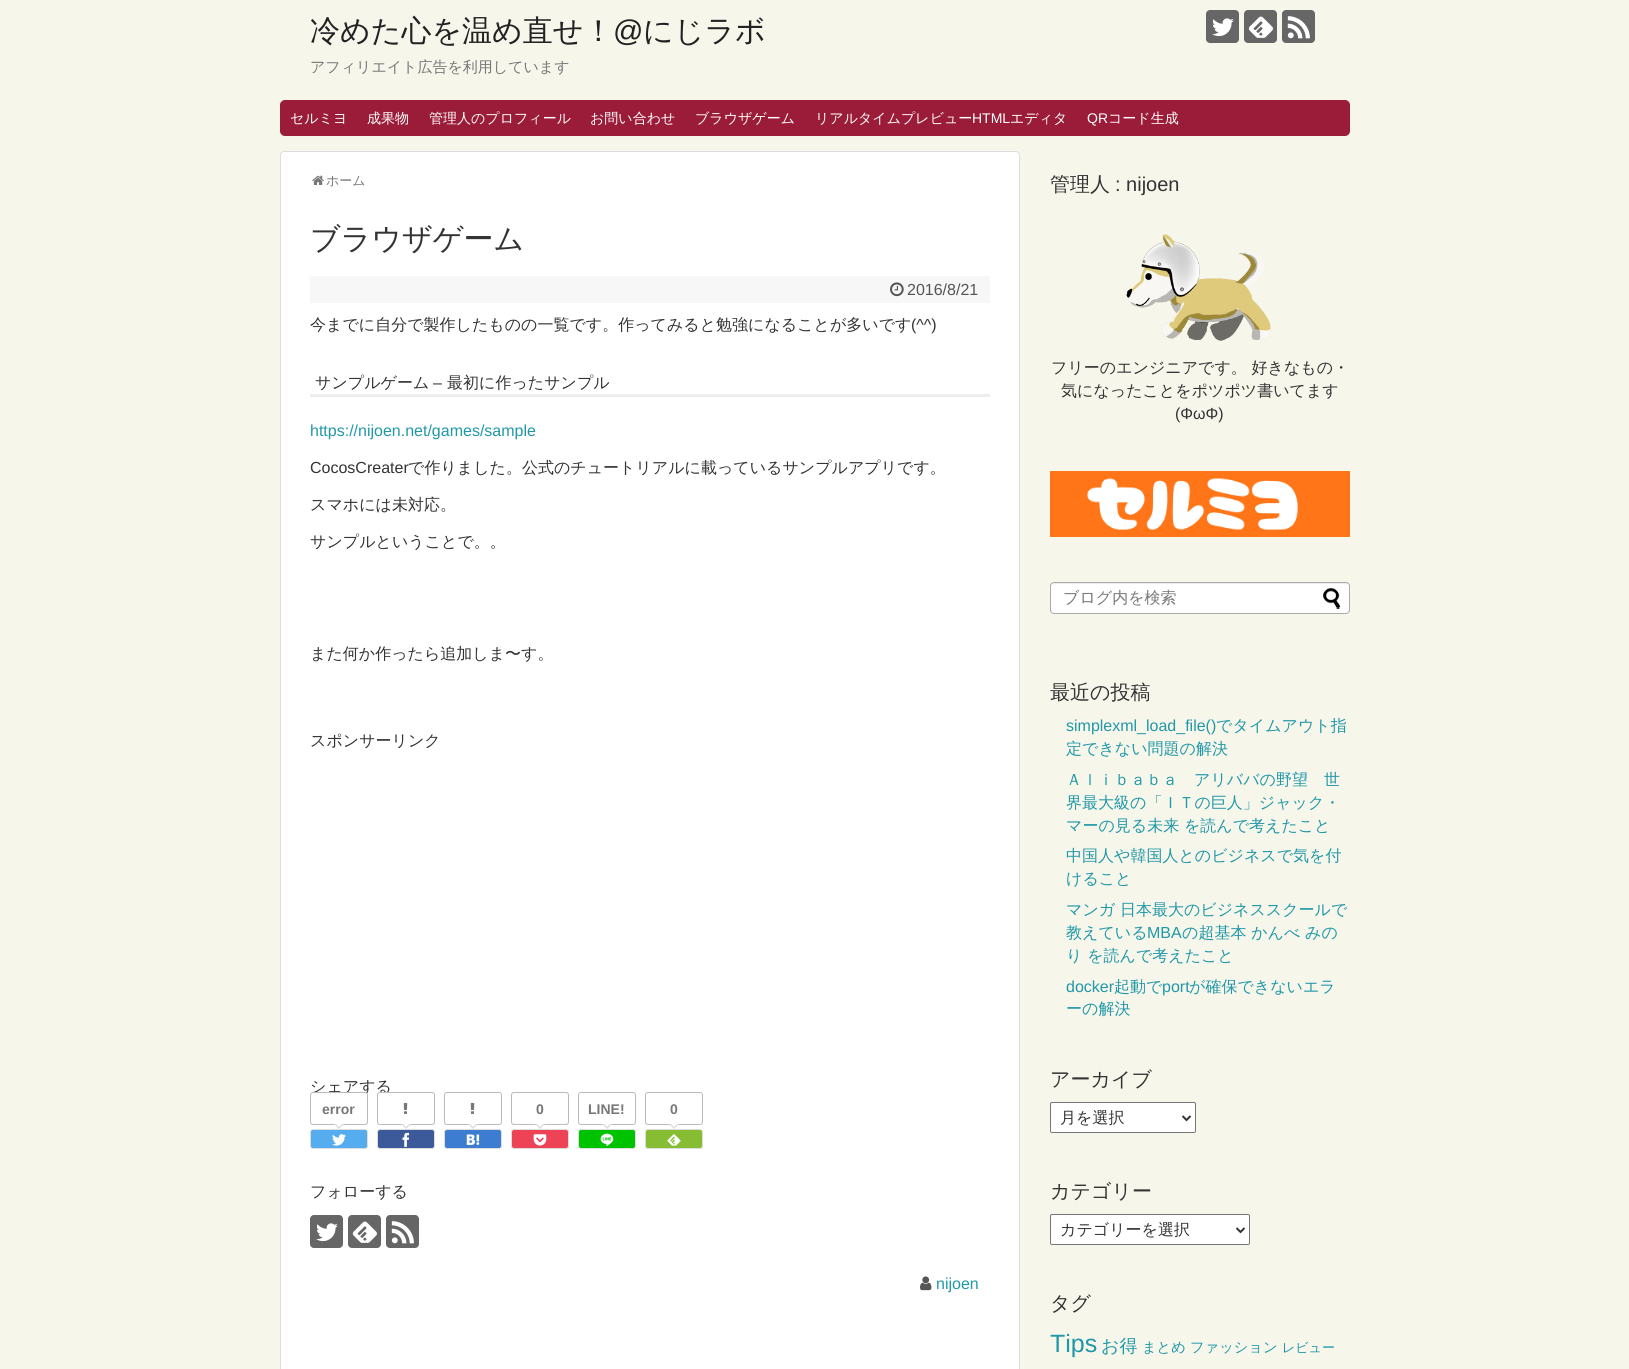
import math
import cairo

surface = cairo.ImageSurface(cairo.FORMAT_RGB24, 1629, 1369)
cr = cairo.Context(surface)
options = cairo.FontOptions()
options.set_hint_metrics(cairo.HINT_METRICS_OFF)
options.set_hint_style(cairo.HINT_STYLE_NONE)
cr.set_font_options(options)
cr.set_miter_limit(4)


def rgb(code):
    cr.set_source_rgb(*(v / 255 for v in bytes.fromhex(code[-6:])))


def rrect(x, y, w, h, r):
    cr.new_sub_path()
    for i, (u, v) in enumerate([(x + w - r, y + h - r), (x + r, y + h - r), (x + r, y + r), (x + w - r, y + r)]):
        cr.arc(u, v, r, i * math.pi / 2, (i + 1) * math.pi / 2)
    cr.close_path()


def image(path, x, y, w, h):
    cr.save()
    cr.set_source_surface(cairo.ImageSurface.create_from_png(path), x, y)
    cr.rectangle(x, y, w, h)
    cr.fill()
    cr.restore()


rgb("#f7f6eb")
cr.paint()
rgb("#666666")
rrect(1206, 10, 33, 33, 4)
cr.fill()
image("img/1.png", 1212, 18, 22, 19)
rrect(1244, 10, 33, 33, 4)
cr.fill()
image("img/2.png", 1248, 16, 25, 22)
rrect(1282, 10, 33, 33, 4)
cr.fill()
image("img/3.png", 1287, 16, 23, 23)
rgb("#9b1c38")
rrect(280.5, 100.5, 1069, 35, 4.5)
cr.fill_preserve()
cr.set_line_width(1)
cr.stroke()
rgb("#ffffff")
rrect(280.5, 151.5, 739, 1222, 3.5)
cr.fill_preserve()
rgb("#dddddd")
cr.stroke()
image("img/4.png", 312, 175, 12, 10)
rgb("#f7f7f7")
cr.rectangle(310, 276, 680, 27)
cr.fill()
image("img/5.png", 890, 282, 14, 15)
rgb("#eeeeee")
cr.rectangle(310, 394, 680, 3)
cr.fill()
rgb("#55acee")
rrect(310.5, 1129.5, 57, 19, 2.5)
cr.fill_preserve()
rgb("#dddddd")
cr.stroke()
image("img/6.png", 332, 1134, 14, 12)
rgb("#3c5a99")
rrect(377.5, 1129.5, 57, 19, 2.5)
cr.fill_preserve()
rgb("#dddddd")
cr.stroke()
image("img/8.png", 402, 1132, 8, 15)
rrect(444.5, 1092.5, 57, 32, 2.5)
rgb("#bbbbbb")
cr.stroke()
image("img/7.png", 470, 1103, 5, 11)
rgb("#dddddd")
cr.new_path()
cr.move_to(468, 1124)
cr.line_to(478, 1124)
cr.line_to(473, 1129)
cr.close_path()
cr.fill()
rgb("#ffffff")
cr.new_path()
cr.move_to(470, 1124)
cr.line_to(476, 1124)
cr.line_to(473, 1127)
cr.close_path()
cr.fill()
rgb("#3c7dd1")
rrect(444.5, 1129.5, 57, 19, 2.5)
cr.fill_preserve()
rgb("#dddddd")
cr.stroke()
image("img/9.png", 466, 1134, 14, 11)
rrect(511.5, 1092.5, 57, 32, 2.5)
rgb("#bbbbbb")
cr.stroke()
rgb("#dddddd")
cr.new_path()
cr.move_to(535, 1124)
cr.line_to(545, 1124)
cr.line_to(540, 1129)
cr.close_path()
cr.fill()
rgb("#ffffff")
cr.new_path()
cr.move_to(537, 1124)
cr.line_to(543, 1124)
cr.line_to(540, 1127)
cr.close_path()
cr.fill()
rgb("#ee4257")
rrect(511.5, 1129.5, 57, 19, 2.5)
cr.fill_preserve()
rgb("#dddddd")
cr.stroke()
image("img/10.png", 533, 1134, 14, 12)
rrect(578.5, 1092.5, 57, 32, 2.5)
rgb("#bbbbbb")
cr.stroke()
rgb("#dddddd")
cr.new_path()
cr.move_to(602, 1124)
cr.line_to(612, 1124)
cr.line_to(607, 1129)
cr.close_path()
cr.fill()
rgb("#ffffff")
cr.new_path()
cr.move_to(604, 1124)
cr.line_to(610, 1124)
cr.line_to(607, 1127)
cr.close_path()
cr.fill()
rgb("#00c300")
rrect(578.5, 1129.5, 57, 19, 2.5)
cr.fill_preserve()
rgb("#dddddd")
cr.stroke()
image("img/11.png", 600, 1133, 14, 13)
rrect(645.5, 1092.5, 57, 32, 2.5)
rgb("#bbbbbb")
cr.stroke()
rgb("#dddddd")
cr.new_path()
cr.move_to(669, 1124)
cr.line_to(679, 1124)
cr.line_to(674, 1129)
cr.close_path()
cr.fill()
rgb("#ffffff")
cr.new_path()
cr.move_to(671, 1124)
cr.line_to(677, 1124)
cr.line_to(674, 1127)
cr.close_path()
cr.fill()
rgb("#87bd33")
rrect(645.5, 1129.5, 57, 19, 2.5)
cr.fill_preserve()
rgb("#dddddd")
cr.stroke()
image("img/12.png", 667, 1134, 14, 12)
rgb("#666666")
rrect(310, 1215, 33, 33, 4)
cr.fill()
image("img/1.png", 316, 1223, 22, 19)
rrect(348, 1215, 33, 33, 4)
cr.fill()
image("img/2.png", 352, 1221, 25, 22)
rrect(386, 1215, 33, 33, 4)
cr.fill()
image("img/3.png", 391, 1221, 23, 23)
image("img/13.png", 920, 1276, 12, 15)
image("img/14.png", 1126, 234, 145, 107)
rgb("#ff7518")
cr.rectangle(1050, 471, 300, 66)
cr.fill()
image("img/15.png", 1087, 478, 212, 52)
rgb("#ffffff")
rrect(1050, 582, 300, 32, 4)
cr.fill()
rgb("#ececec")
cr.new_path()
cr.move_to(1054, 584)
cr.line_to(1346, 584)
cr.curve_to(1348, 584, 1349, 585, 1349, 587)
cr.line_to(1348, 584)
cr.line_to(1347, 583)
cr.line_to(1054, 583)
cr.curve_to(1052, 583, 1051, 585, 1051, 587)
cr.curve_to(1051, 585, 1052, 584, 1054, 584)
cr.close_path()
cr.fill()
rrect(1050.5, 582.5, 299, 31, 3.5)
rgb("#aaaaaa")
cr.stroke()
image("img/16.png", 1323, 588, 17, 21)
rgb("#ffffff")
rrect(1050.5, 1102.5, 145, 30, 1.5)
cr.fill_preserve()
rgb("#767676")
cr.stroke()
cr.new_path()
cr.move_to(1182.5, 1116)
cr.line_to(1186.5, 1120)
cr.line_to(1190.5, 1116)
rgb("#333333")
cr.set_line_width(2)
cr.stroke()
rgb("#ffffff")
rrect(1050.5, 1214.5, 199, 30, 1.5)
cr.fill_preserve()
rgb("#767676")
cr.set_line_width(1)
cr.stroke()
cr.new_path()
cr.move_to(1236.5, 1228)
cr.line_to(1240.5, 1232)
cr.line_to(1244.5, 1228)
rgb("#333333")
cr.set_line_width(2)
cr.stroke()
cr.select_font_face("WenQuanYi Zen Hei Medium")
cr.set_font_size(30)
rgb("#222222")
cr.move_to(310, 41)
cr.show_text("冷めた心を温め直せ！")
cr.select_font_face("Liberation Sans")
cr.move_to(613, 41)
cr.show_text("@")
cr.select_font_face("WenQuanYi Zen Hei Medium")
cr.move_to(643, 41)
cr.show_text("にじラボ")
cr.set_font_size(15)
rgb("#777777")
cr.move_to(310, 72)
cr.show_text("アフィリエイト広告を利用しています")
cr.set_font_size(14)
rgb("#ffffff")
for x, y, s in [
    (290, 123, "セルミヨ"),
    (367, 123, "成果物"),
    (429, 123, "管理人のプロフィール"),
    (590, 123, "お問い合わせ"),
    (695, 123, "ブラウザゲーム"),
    (815, 123, "リアルタイムプレビュー"),
]:
    cr.move_to(x, y)
    cr.show_text(s)
cr.select_font_face("Liberation Sans")
cr.move_to(972, 123)
cr.show_text("HTML")
cr.select_font_face("WenQuanYi Zen Hei Medium")
cr.move_to(1010, 123)
cr.show_text("エディタ")
cr.select_font_face("Liberation Sans")
cr.move_to(1087, 123)
cr.show_text("QR")
cr.select_font_face("WenQuanYi Zen Hei Medium")
cr.move_to(1108, 123)
cr.show_text("コード生成")
cr.set_font_size(13)
rgb("#777777")
cr.move_to(326, 185)
cr.show_text("ホーム")
cr.set_font_size(30)
rgb("#333333")
cr.move_to(310, 249)
cr.show_text("ブラウザゲーム")
cr.select_font_face("Liberation Sans")
cr.set_font_size(16)
rgb("#555555")
cr.move_to(907, 295)
cr.show_text("2016/8/21")
cr.select_font_face("WenQuanYi Zen Hei Medium")
rgb("#333333")
cr.move_to(310, 330)
cr.show_text("今までに自分で製作したものの一覧です。作ってみると勉強になることが多いです")
cr.select_font_face("Liberation Sans")
cr.move_to(911, 330)
cr.show_text("(^^)")
cr.select_font_face("WenQuanYi Zen Hei Medium")
cr.move_to(315, 388)
cr.show_text("サンプルゲーム")
cr.select_font_face("Liberation Sans")
cr.move_to(433, 388)
cr.show_text("–")
cr.select_font_face("WenQuanYi Zen Hei Medium")
cr.move_to(447, 388)
cr.show_text("最初に作ったサンプル")
cr.select_font_face("Liberation Sans")
rgb("#2098a8")
cr.move_to(310, 436)
cr.show_text("https://nijoen.net/games/sample")
rgb("#333333")
cr.move_to(310, 473)
cr.show_text("CocosCreater")
cr.select_font_face("WenQuanYi Zen Hei Medium")
for x, y, s in [
    (408, 473, "で作りました。公式のチュートリアルに載っているサンプルアプリです。"),
    (310, 510, "スマホには未対応。"),
    (310, 547, "サンプルということで。。"),
    (310, 659, "また何か作ったら追加しま〜す。"),
    (310, 746, "スポンサーリンク"),
    (310, 1092, "シェアする"),
]:
    cr.move_to(x, y)
    cr.show_text(s)
rgb("#ffffff")
rrect(310.5, 1092.5, 57, 32, 2.5)
cr.fill_preserve()
rgb("#bbbbbb")
cr.set_line_width(1)
cr.stroke()
cr.select_font_face("Liberation Sans", cairo.FONT_SLANT_NORMAL, cairo.FONT_WEIGHT_BOLD)
cr.set_font_size(14)
rgb("#777777")
cr.move_to(322, 1114)
cr.show_text("error")
rgb("#dddddd")
cr.new_path()
cr.move_to(334, 1124)
cr.line_to(344, 1124)
cr.line_to(339, 1129)
cr.close_path()
cr.fill()
rgb("#ffffff")
cr.new_path()
cr.move_to(336, 1124)
cr.line_to(342, 1124)
cr.line_to(339, 1127)
cr.close_path()
cr.fill()
rrect(377.5, 1092.5, 57, 32, 2.5)
cr.fill_preserve()
rgb("#bbbbbb")
cr.stroke()
image("img/7.png", 403, 1103, 5, 11)
rgb("#dddddd")
cr.new_path()
cr.move_to(401, 1124)
cr.line_to(411, 1124)
cr.line_to(406, 1129)
cr.close_path()
cr.fill()
rgb("#ffffff")
cr.new_path()
cr.move_to(403, 1124)
cr.line_to(409, 1124)
cr.line_to(406, 1127)
cr.close_path()
cr.fill()
rgb("#777777")
for x, y, s in [
    (536, 1114, "0"),
    (588, 1114, "LINE!"),
    (670, 1114, "0"),
]:
    cr.move_to(x, y)
    cr.show_text(s)
cr.select_font_face("WenQuanYi Zen Hei Medium")
cr.set_font_size(16)
rgb("#333333")
cr.move_to(310, 1197)
cr.show_text("フォローする")
cr.select_font_face("Liberation Sans")
rgb("#2098a8")
cr.move_to(936, 1289)
cr.show_text("nijoen")
cr.select_font_face("WenQuanYi Zen Hei Medium")
cr.set_font_size(20)
rgb("#333333")
cr.move_to(1050, 191)
cr.show_text("管理人")
cr.select_font_face("Liberation Sans")
cr.move_to(1115, 191)
cr.show_text(": nijoen")
cr.select_font_face("WenQuanYi Zen Hei Medium")
cr.set_font_size(16)
cr.move_to(1051, 373)
cr.show_text("フリーのエンジニアです。 好きなもの・")
cr.move_to(1061, 396)
cr.show_text("気になったことをポツポツ書いてます")
cr.select_font_face("Liberation Sans")
cr.move_to(1175, 419)
cr.show_text("(ΦωΦ)")
cr.select_font_face("WenQuanYi Zen Hei Medium")
rgb("#777777")
cr.move_to(1063, 603)
cr.show_text("ブログ内を検索")
cr.set_font_size(20)
rgb("#333333")
cr.move_to(1050, 699)
cr.show_text("最近の投稿")
cr.select_font_face("Liberation Sans")
cr.set_font_size(16)
rgb("#2098a8")
cr.move_to(1066, 731)
cr.show_text("simplexml_load_file()")
cr.select_font_face("WenQuanYi Zen Hei Medium")
for x, y, s in [
    (1216, 731, "でタイムアウト指"),
    (1066, 754, "定できない問題の解決"),
    (1066, 785, "Ａｌｉｂａｂａ　アリババの野望　世"),
    (1066, 808, "界最大級の「ＩＴの巨人」ジャック・"),
    (1066, 831, "マーの見る未来 を読んで考えたこと"),
    (1066, 861, "中国人や韓国人とのビジネスで気を付"),
    (1066, 884, "けること"),
    (1066, 915, "マンガ 日本最大のビジネススクールで"),
    (1066, 938, "教えている"),
]:
    cr.move_to(x, y)
    cr.show_text(s)
cr.select_font_face("Liberation Sans")
cr.move_to(1147, 938)
cr.show_text("MBA")
cr.select_font_face("WenQuanYi Zen Hei Medium")
cr.move_to(1182, 938)
cr.show_text("の超基本 かんべ みの")
cr.move_to(1066, 961)
cr.show_text("り を読んで考えたこと")
cr.select_font_face("Liberation Sans")
cr.move_to(1066, 992)
cr.show_text("docker")
cr.select_font_face("WenQuanYi Zen Hei Medium")
cr.move_to(1114, 992)
cr.show_text("起動で")
cr.select_font_face("Liberation Sans")
cr.move_to(1162, 992)
cr.show_text("port")
cr.select_font_face("WenQuanYi Zen Hei Medium")
cr.move_to(1189, 992)
cr.show_text("が確保できないエラ")
cr.move_to(1066, 1014)
cr.show_text("ーの解決")
cr.set_font_size(20)
rgb("#333333")
cr.move_to(1050, 1086)
cr.show_text("アーカイブ")
cr.set_font_size(16)
cr.move_to(1060, 1123)
cr.show_text("月を選択")
cr.set_font_size(20)
cr.move_to(1050, 1198)
cr.show_text("カテゴリー")
cr.set_font_size(16)
cr.move_to(1060, 1235)
cr.show_text("カテゴリーを選択")
cr.set_font_size(20)
cr.move_to(1050, 1310)
cr.show_text("タグ")
cr.select_font_face("Liberation Sans")
cr.set_font_size(25)
rgb("#2098a8")
cr.move_to(1050, 1352)
cr.show_text("Tips")
cr.select_font_face("WenQuanYi Zen Hei Medium")
cr.set_font_size(18)
cr.move_to(1101, 1352)
cr.show_text("お得")
cr.set_font_size(14.25)
cr.move_to(1142, 1352)
cr.show_text("まとめ ファッション")
cr.set_font_size(13)
cr.move_to(1282, 1352)
cr.show_text("レビュー")
surface.write_to_png("page.png")
